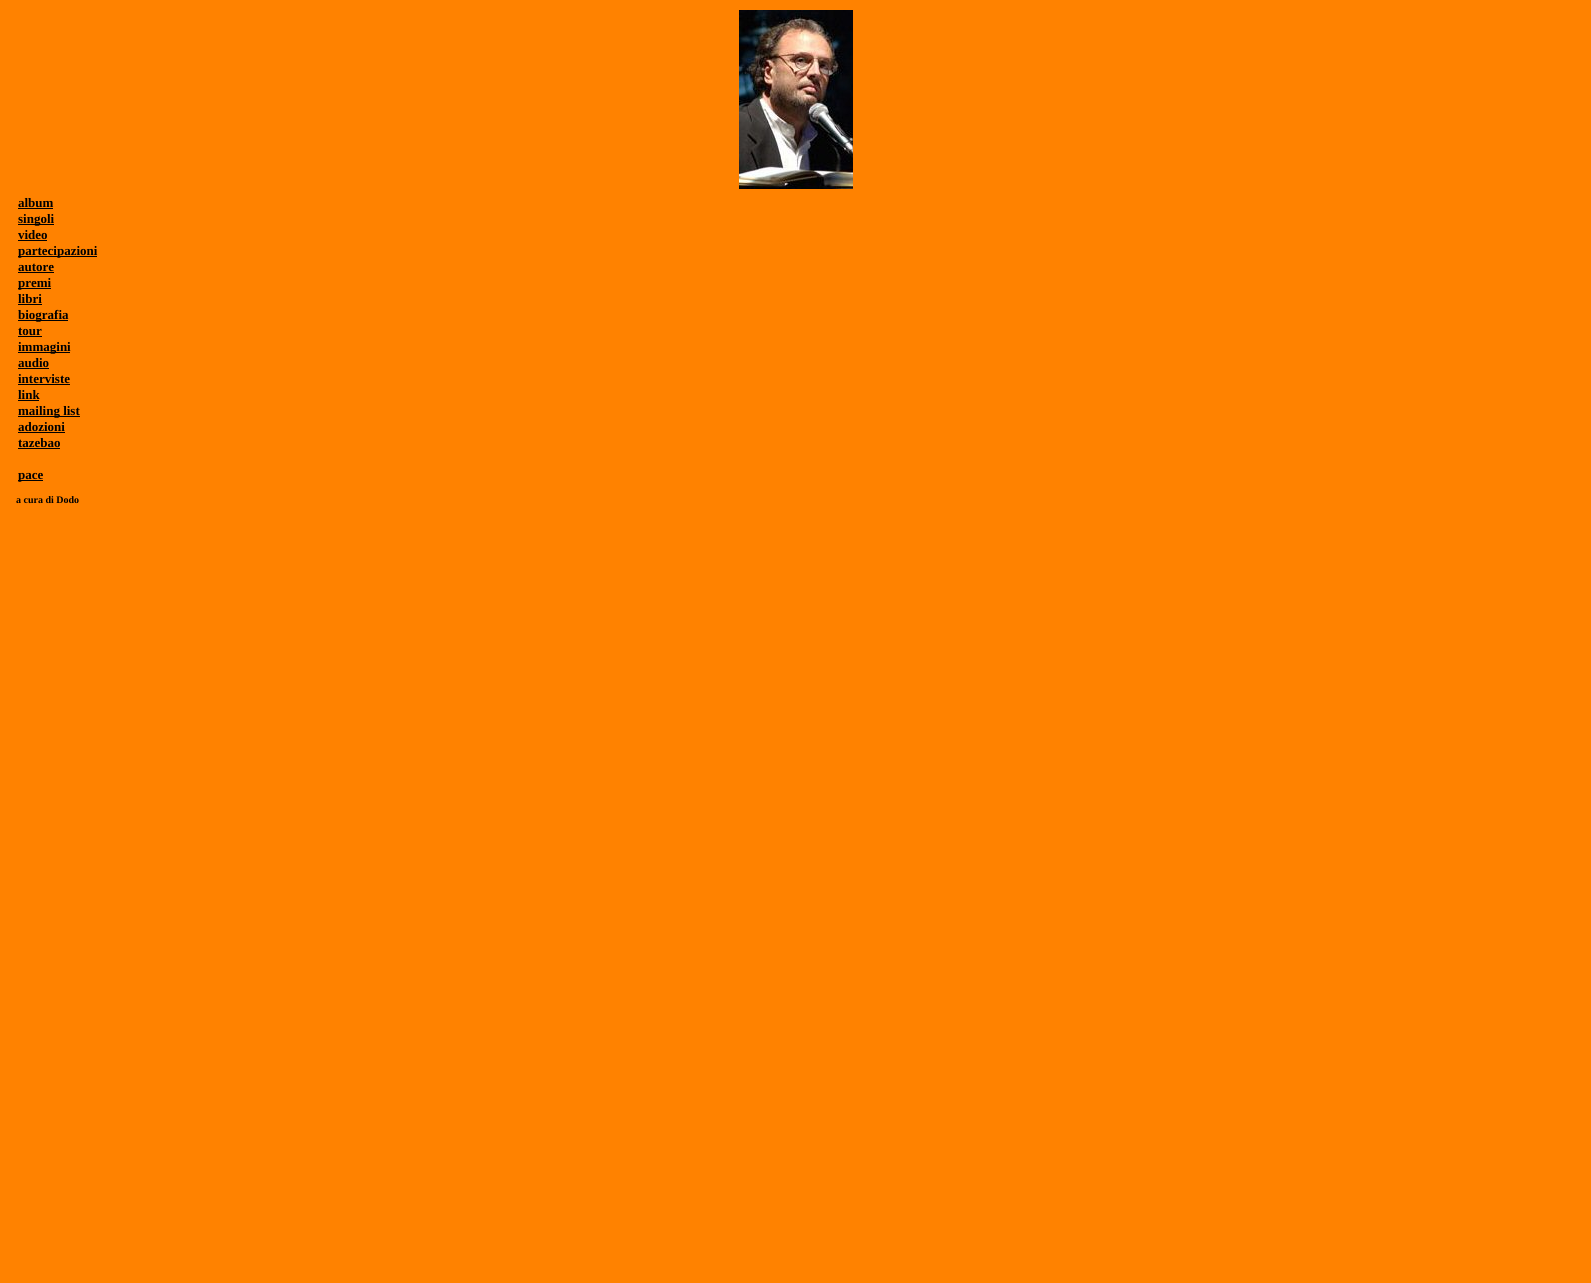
import math
import cairo

surface = cairo.ImageSurface(cairo.FORMAT_RGB24, 1591, 1283)
cr = cairo.Context(surface)
options = cairo.FontOptions()
options.set_hint_metrics(cairo.HINT_METRICS_OFF)
options.set_hint_style(cairo.HINT_STYLE_NONE)
cr.set_font_options(options)
cr.set_miter_limit(4)


def rgb(code):
    cr.set_source_rgb(*(v / 255 for v in bytes.fromhex(code[-6:])))


def image(path, x, y, w, h):
    cr.save()
    cr.set_source_surface(cairo.ImageSurface.create_from_png(path), x, y)
    cr.rectangle(x, y, w, h)
    cr.fill()
    cr.restore()


rgb("#ff8200")
cr.paint()
image("img/1.png", 739, 10, 114, 179)
for x, y, w, h, color in [
    (18, 208, 35, 1, "#000000"),
    (18, 224, 36, 1, "#000000"),
    (18, 240, 29, 1, "#000000"),
    (18, 256, 79, 1, "#000000"),
    (18, 272, 36, 1, "#000000"),
    (18, 288, 33, 1, "#000000"),
    (18, 304, 24, 1, "#000000"),
    (18, 320, 50, 1, "#000000"),
    (18, 336, 24, 1, "#000000"),
    (18, 352, 52, 1, "#000000"),
    (18, 368, 31, 1, "#000000"),
    (18, 384, 52, 1, "#000000"),
    (18, 400, 21, 1, "#000000"),
    (18, 416, 62, 1, "#000000"),
    (18, 432, 47, 1, "#000000"),
    (18, 448, 42, 1, "#000000"),
    (18, 480, 25, 1, "#000000"),
]:
    rgb(color)
    cr.rectangle(x, y, w, h)
    cr.fill()
cr.select_font_face("Liberation Serif", cairo.FONT_SLANT_NORMAL, cairo.FONT_WEIGHT_BOLD)
cr.set_font_size(13)
for x, y, s in [
    (18, 207, "album"),
    (18, 223, "singoli"),
    (18, 239, "video"),
    (18, 255, "partecipazioni"),
    (18, 271, "autore"),
    (18, 287, "premi"),
    (18, 303, "libri"),
    (18, 319, "biografia"),
    (18, 335, "tour"),
    (18, 351, "immagini"),
    (18, 367, "audio"),
    (18, 383, "interviste"),
    (18, 399, "link"),
    (18, 415, "mailing list"),
    (18, 431, "adozioni"),
    (18, 447, "tazebao"),
    (18, 479, "pace"),
]:
    cr.move_to(x, y)
    cr.show_text(s)
cr.set_font_size(10)
cr.move_to(16, 503)
cr.show_text("a cura di Dodo")
surface.write_to_png("page.png")
